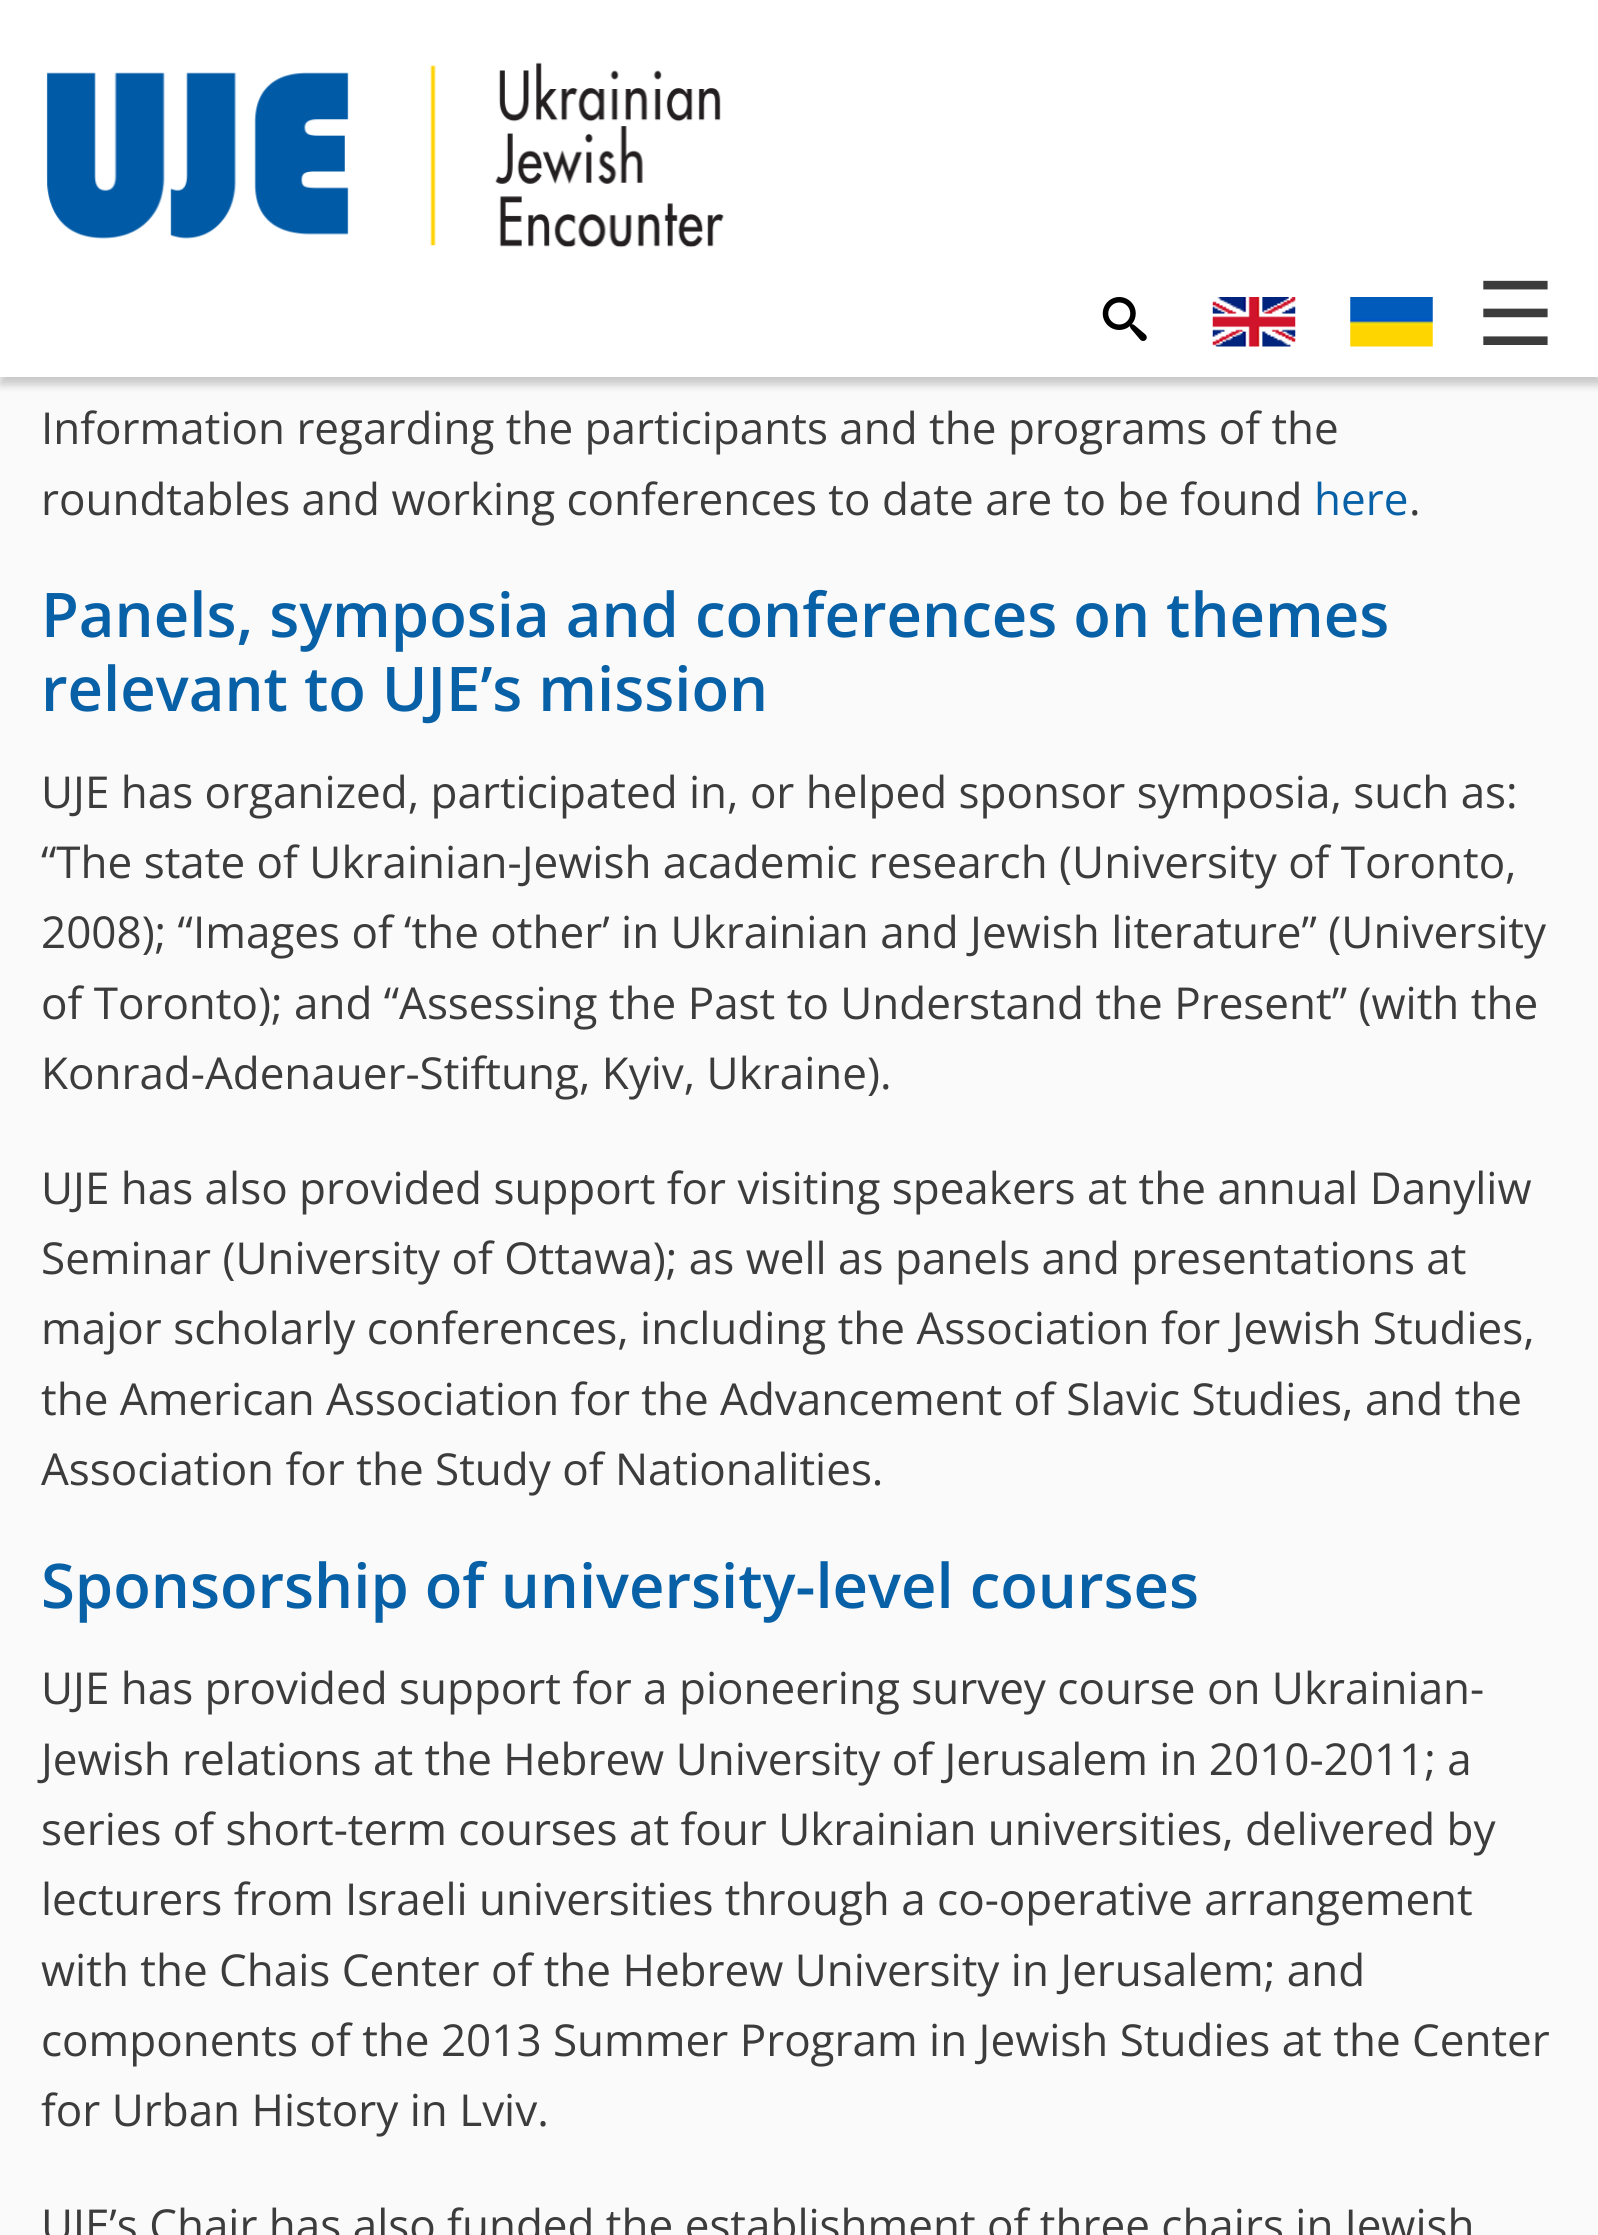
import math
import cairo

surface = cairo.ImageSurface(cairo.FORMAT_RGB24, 1598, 2235)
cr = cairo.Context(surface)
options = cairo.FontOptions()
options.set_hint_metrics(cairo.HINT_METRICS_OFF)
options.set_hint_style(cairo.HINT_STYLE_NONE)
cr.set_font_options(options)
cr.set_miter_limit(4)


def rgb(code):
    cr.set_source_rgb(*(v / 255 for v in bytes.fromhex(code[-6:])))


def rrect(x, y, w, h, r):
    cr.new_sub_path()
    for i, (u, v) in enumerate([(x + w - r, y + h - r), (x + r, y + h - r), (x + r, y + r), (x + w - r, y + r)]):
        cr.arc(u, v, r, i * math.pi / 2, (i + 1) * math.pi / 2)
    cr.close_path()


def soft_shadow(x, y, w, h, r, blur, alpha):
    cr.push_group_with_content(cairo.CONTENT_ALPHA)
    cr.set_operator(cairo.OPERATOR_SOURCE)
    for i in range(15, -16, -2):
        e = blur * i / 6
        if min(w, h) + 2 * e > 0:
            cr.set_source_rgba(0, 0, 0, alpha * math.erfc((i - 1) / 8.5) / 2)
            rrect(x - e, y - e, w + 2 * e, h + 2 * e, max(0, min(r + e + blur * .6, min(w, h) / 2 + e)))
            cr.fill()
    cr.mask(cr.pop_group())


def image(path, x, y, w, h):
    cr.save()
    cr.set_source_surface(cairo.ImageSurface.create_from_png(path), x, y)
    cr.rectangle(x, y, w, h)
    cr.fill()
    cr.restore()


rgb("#fbfafb")
cr.paint()
rgb("#999999")
soft_shadow(0, 8, 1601, 377, 0, 4, 0.5)
rgb("#ffffff")
cr.rectangle(0, 0, 1598, 377)
cr.fill()
image("img/1.png", 46, 62, 678, 186)
image("img/2.png", 1102, 297, 45, 44)
image("img/3.png", 1212, 297, 84, 50)
image("img/4.png", 1350, 297, 83, 50)
cr.select_font_face("DejaVu Sans")
cr.set_font_size(88)
rgb("#3c3c3c")
cr.move_to(1476, 345)
cr.show_text("☰")
cr.select_font_face("Open Sans")
cr.set_font_size(44)
cr.move_to(41, 444)
cr.show_text("Information regarding the participants and the programs of the")
cr.move_to(41, 515)
cr.show_text("roundtables and working conferences to date are to be found")
rgb("#0861a6")
cr.move_to(1314, 515)
cr.show_text("here")
rgb("#3c3c3c")
cr.move_to(1409, 515)
cr.show_text(".")
cr.select_font_face("Open Sans SemiBold")
cr.set_font_size(61.6)
rgb("#0861a6")
cr.move_to(41, 637)
cr.show_text("Panels, symposia and conferences on themes")
cr.move_to(41, 711)
cr.show_text("relevant to UJE’s mission")
cr.select_font_face("Open Sans")
cr.set_font_size(44)
rgb("#3c3c3c")
for x, y, s in [
    (41, 808, "UJE has organized, participated in, or helped sponsor symposia, such as:"),
    (41, 878, "“The state of Ukrainian-Jewish academic research (University of Toronto,"),
    (41, 948, "2008); “Images of ‘the other’ in Ukrainian and Jewish literature” (University"),
    (41, 1019, "of Toronto); and “Assessing the Past to Understand the Present” (with the"),
    (41, 1089, "Konrad-Adenauer-Stiftung, Kyiv, Ukraine)."),
    (41, 1204, "UJE has also provided support for visiting speakers at the annual Danyliw"),
    (41, 1274, "Seminar (University of Ottawa); as well as panels and presentations at"),
    (41, 1344, "major scholarly conferences, including the Association for Jewish Studies,"),
    (41, 1415, "the American Association for the Advancement of Slavic Studies, and the"),
    (41, 1485, "Association for the Study of Nationalities."),
]:
    cr.move_to(x, y)
    cr.show_text(s)
cr.select_font_face("Open Sans SemiBold")
cr.set_font_size(61.6)
rgb("#0861a6")
cr.move_to(41, 1608)
cr.show_text("Sponsorship of university-level courses")
cr.select_font_face("Open Sans")
cr.set_font_size(44)
rgb("#3c3c3c")
for x, y, s in [
    (41, 1704, "UJE has provided support for a pioneering survey course on Ukrainian-"),
    (41, 1775, "Jewish relations at the Hebrew University of Jerusalem in 2010-2011; a"),
    (41, 1845, "series of short-term courses at four Ukrainian universities, delivered by"),
    (41, 1915, "lecturers from Israeli universities through a co-operative arrangement"),
    (41, 1986, "with the Chais Center of the Hebrew University in Jerusalem; and"),
    (41, 2056, "components of the 2013 Summer Program in Jewish Studies at the Center"),
    (41, 2126, "for Urban History in Lviv."),
    (41, 2241, "UJE’s Chair has also funded the establishment of three chairs in Jewish"),
]:
    cr.move_to(x, y)
    cr.show_text(s)
surface.write_to_png("page.png")
